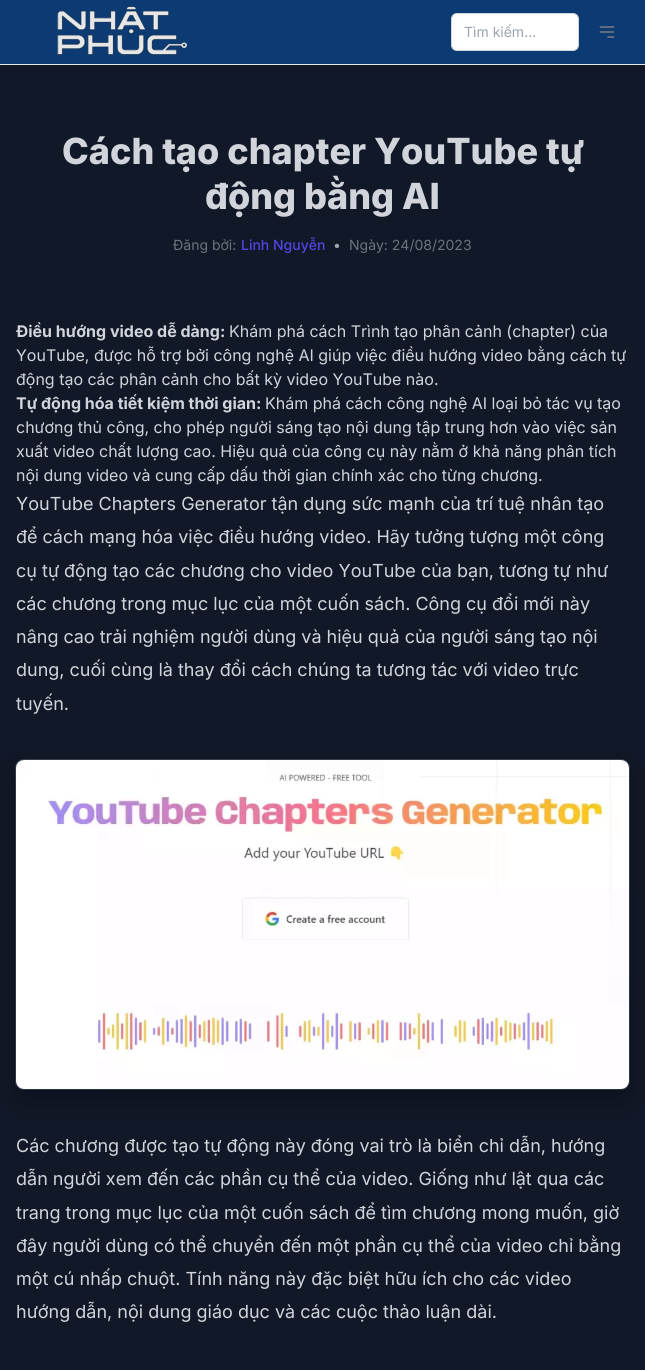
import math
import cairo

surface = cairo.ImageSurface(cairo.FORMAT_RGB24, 645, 1370)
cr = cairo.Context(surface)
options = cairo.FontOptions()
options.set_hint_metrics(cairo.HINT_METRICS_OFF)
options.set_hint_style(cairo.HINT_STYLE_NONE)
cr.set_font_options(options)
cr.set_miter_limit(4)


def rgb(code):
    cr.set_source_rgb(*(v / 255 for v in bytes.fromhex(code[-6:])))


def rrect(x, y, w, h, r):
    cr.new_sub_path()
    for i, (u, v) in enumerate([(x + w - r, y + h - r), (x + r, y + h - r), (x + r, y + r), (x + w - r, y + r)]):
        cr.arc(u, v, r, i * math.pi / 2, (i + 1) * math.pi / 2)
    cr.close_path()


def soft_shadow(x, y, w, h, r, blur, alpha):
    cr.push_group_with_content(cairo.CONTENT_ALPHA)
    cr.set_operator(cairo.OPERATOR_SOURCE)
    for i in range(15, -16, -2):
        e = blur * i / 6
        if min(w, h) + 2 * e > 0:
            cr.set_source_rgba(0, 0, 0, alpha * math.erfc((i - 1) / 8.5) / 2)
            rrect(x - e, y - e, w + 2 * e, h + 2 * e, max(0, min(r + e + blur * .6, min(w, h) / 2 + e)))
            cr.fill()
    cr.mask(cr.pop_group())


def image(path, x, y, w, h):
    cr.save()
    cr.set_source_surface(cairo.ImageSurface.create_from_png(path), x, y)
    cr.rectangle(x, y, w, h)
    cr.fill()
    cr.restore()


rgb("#111827")
cr.paint()
rgb("#0c3a72")
cr.rectangle(0, 0, 645, 64)
cr.fill()
rgb("#e5e7eb")
cr.rectangle(0, 64, 645, 1)
cr.fill()
image("img/1.png", 57, 6, 131, 49)
rgb("#ffffff")
rrect(451.5, 13.5, 127, 37, 5.5)
cr.fill_preserve()
rgb("#d1d5db")
cr.set_line_width(1)
cr.stroke()
cr.new_path()
cr.move_to(600.5, 27)
cr.line_to(613.5, 27)
cr.move_to(600.5, 32)
cr.line_to(613.5, 32)
cr.move_to(608, 37)
cr.line_to(613.5, 37)
rgb("#6b7280")
cr.set_line_width(1.7)
cr.set_line_cap(cairo.LINE_CAP_ROUND)
cr.set_line_join(cairo.LINE_JOIN_ROUND)
cr.stroke()
rrect(15.5, 759.5, 614, 330, 8.5)
rgb("#374151")
cr.set_line_width(1)
cr.set_line_cap(cairo.LINE_CAP_BUTT)
cr.set_line_join(cairo.LINE_JOIN_MITER)
cr.stroke()
rgb("#000000")
soft_shadow(16, 770, 613, 329, 8, 12.5, 0.3)
image("img/2.png", 16, 760, 613, 329)
cr.select_font_face("Inter")
cr.set_font_size(14)
rgb("#9ca3af")
cr.move_to(464, 37)
cr.show_text("Tìm kiếm...")
cr.select_font_face("Inter ExtraBold")
cr.set_font_size(36)
rgb("#d1d5db")
cr.move_to(62, 164)
cr.show_text("Cách tạo chapter YouTube tự")
cr.move_to(205, 209)
cr.show_text("động bằng AI")
cr.select_font_face("Inter")
cr.set_font_size(14)
rgb("#6b7280")
cr.move_to(173, 250)
cr.show_text("Đăng bởi:")
cr.select_font_face("Inter Medium")
rgb("#4f46e5")
cr.move_to(241, 250)
cr.show_text("Linh Nguyễn")
cr.select_font_face("Inter")
rgb("#9ca3af")
cr.move_to(333, 250)
cr.show_text("•")
rgb("#6b7280")
cr.move_to(349, 250)
cr.show_text("Ngày: 24/08/2023")
cr.select_font_face("Inter", cairo.FONT_SLANT_NORMAL, cairo.FONT_WEIGHT_BOLD)
cr.set_font_size(16)
rgb("#d1d5db")
cr.move_to(16, 337)
cr.show_text("Điều hướng video dễ dàng:")
cr.select_font_face("Inter")
for x, y, s in [
    (229, 337, "Khám phá cách Trình tạo phân cảnh (chapter) của"),
    (16, 361, "YouTube, được hỗ trợ bởi công nghệ AI giúp việc điều hướng video bằng cách tự"),
    (16, 385, "động tạo các phân cảnh cho bất kỳ video YouTube nào."),
]:
    cr.move_to(x, y)
    cr.show_text(s)
cr.select_font_face("Inter", cairo.FONT_SLANT_NORMAL, cairo.FONT_WEIGHT_BOLD)
cr.move_to(16, 409)
cr.show_text("Tự động hóa tiết kiệm thời gian:")
cr.select_font_face("Inter")
for x, y, s in [
    (265, 409, "Khám phá cách công nghệ AI loại bỏ tác vụ tạo"),
    (16, 433, "chương thủ công, cho phép người sáng tạo nội dung tập trung hơn vào việc sản"),
    (16, 457, "xuất video chất lượng cao. Hiệu quả của công cụ này nằm ở khả năng phân tích"),
    (16, 481, "nội dung video và cung cấp dấu thời gian chính xác cho từng chương."),
]:
    cr.move_to(x, y)
    cr.show_text(s)
cr.set_font_size(18)
for x, y, s in [
    (16, 510, "YouTube Chapters Generator tận dụng sức mạnh của trí tuệ nhân tạo"),
    (16, 543, "để cách mạng hóa việc điều hướng video. Hãy tưởng tượng một công"),
    (16, 577, "cụ tự động tạo các chương cho video YouTube của bạn, tương tự như"),
    (16, 610, "các chương trong mục lục của một cuốn sách. Công cụ đổi mới này"),
    (16, 643, "nâng cao trải nghiệm người dùng và hiệu quả của người sáng tạo nội"),
    (16, 676, "dung, cuối cùng là thay đổi cách chúng ta tương tác với video trực"),
    (16, 710, "tuyến."),
    (16, 1152, "Các chương được tạo tự động này đóng vai trò là biển chỉ dẫn, hướng"),
    (16, 1185, "dẫn người xem đến các phần cụ thể của video. Giống như lật qua các"),
    (16, 1219, "trang trong mục lục của một cuốn sách để tìm chương mong muốn, giờ"),
    (16, 1252, "đây người dùng có thể chuyển đến một phần cụ thể của video chỉ bằng"),
    (16, 1285, "một cú nhấp chuột. Tính năng này đặc biệt hữu ích cho các video"),
    (16, 1318, "hướng dẫn, nội dung giáo dục và các cuộc thảo luận dài."),
]:
    cr.move_to(x, y)
    cr.show_text(s)
surface.write_to_png("page.png")
